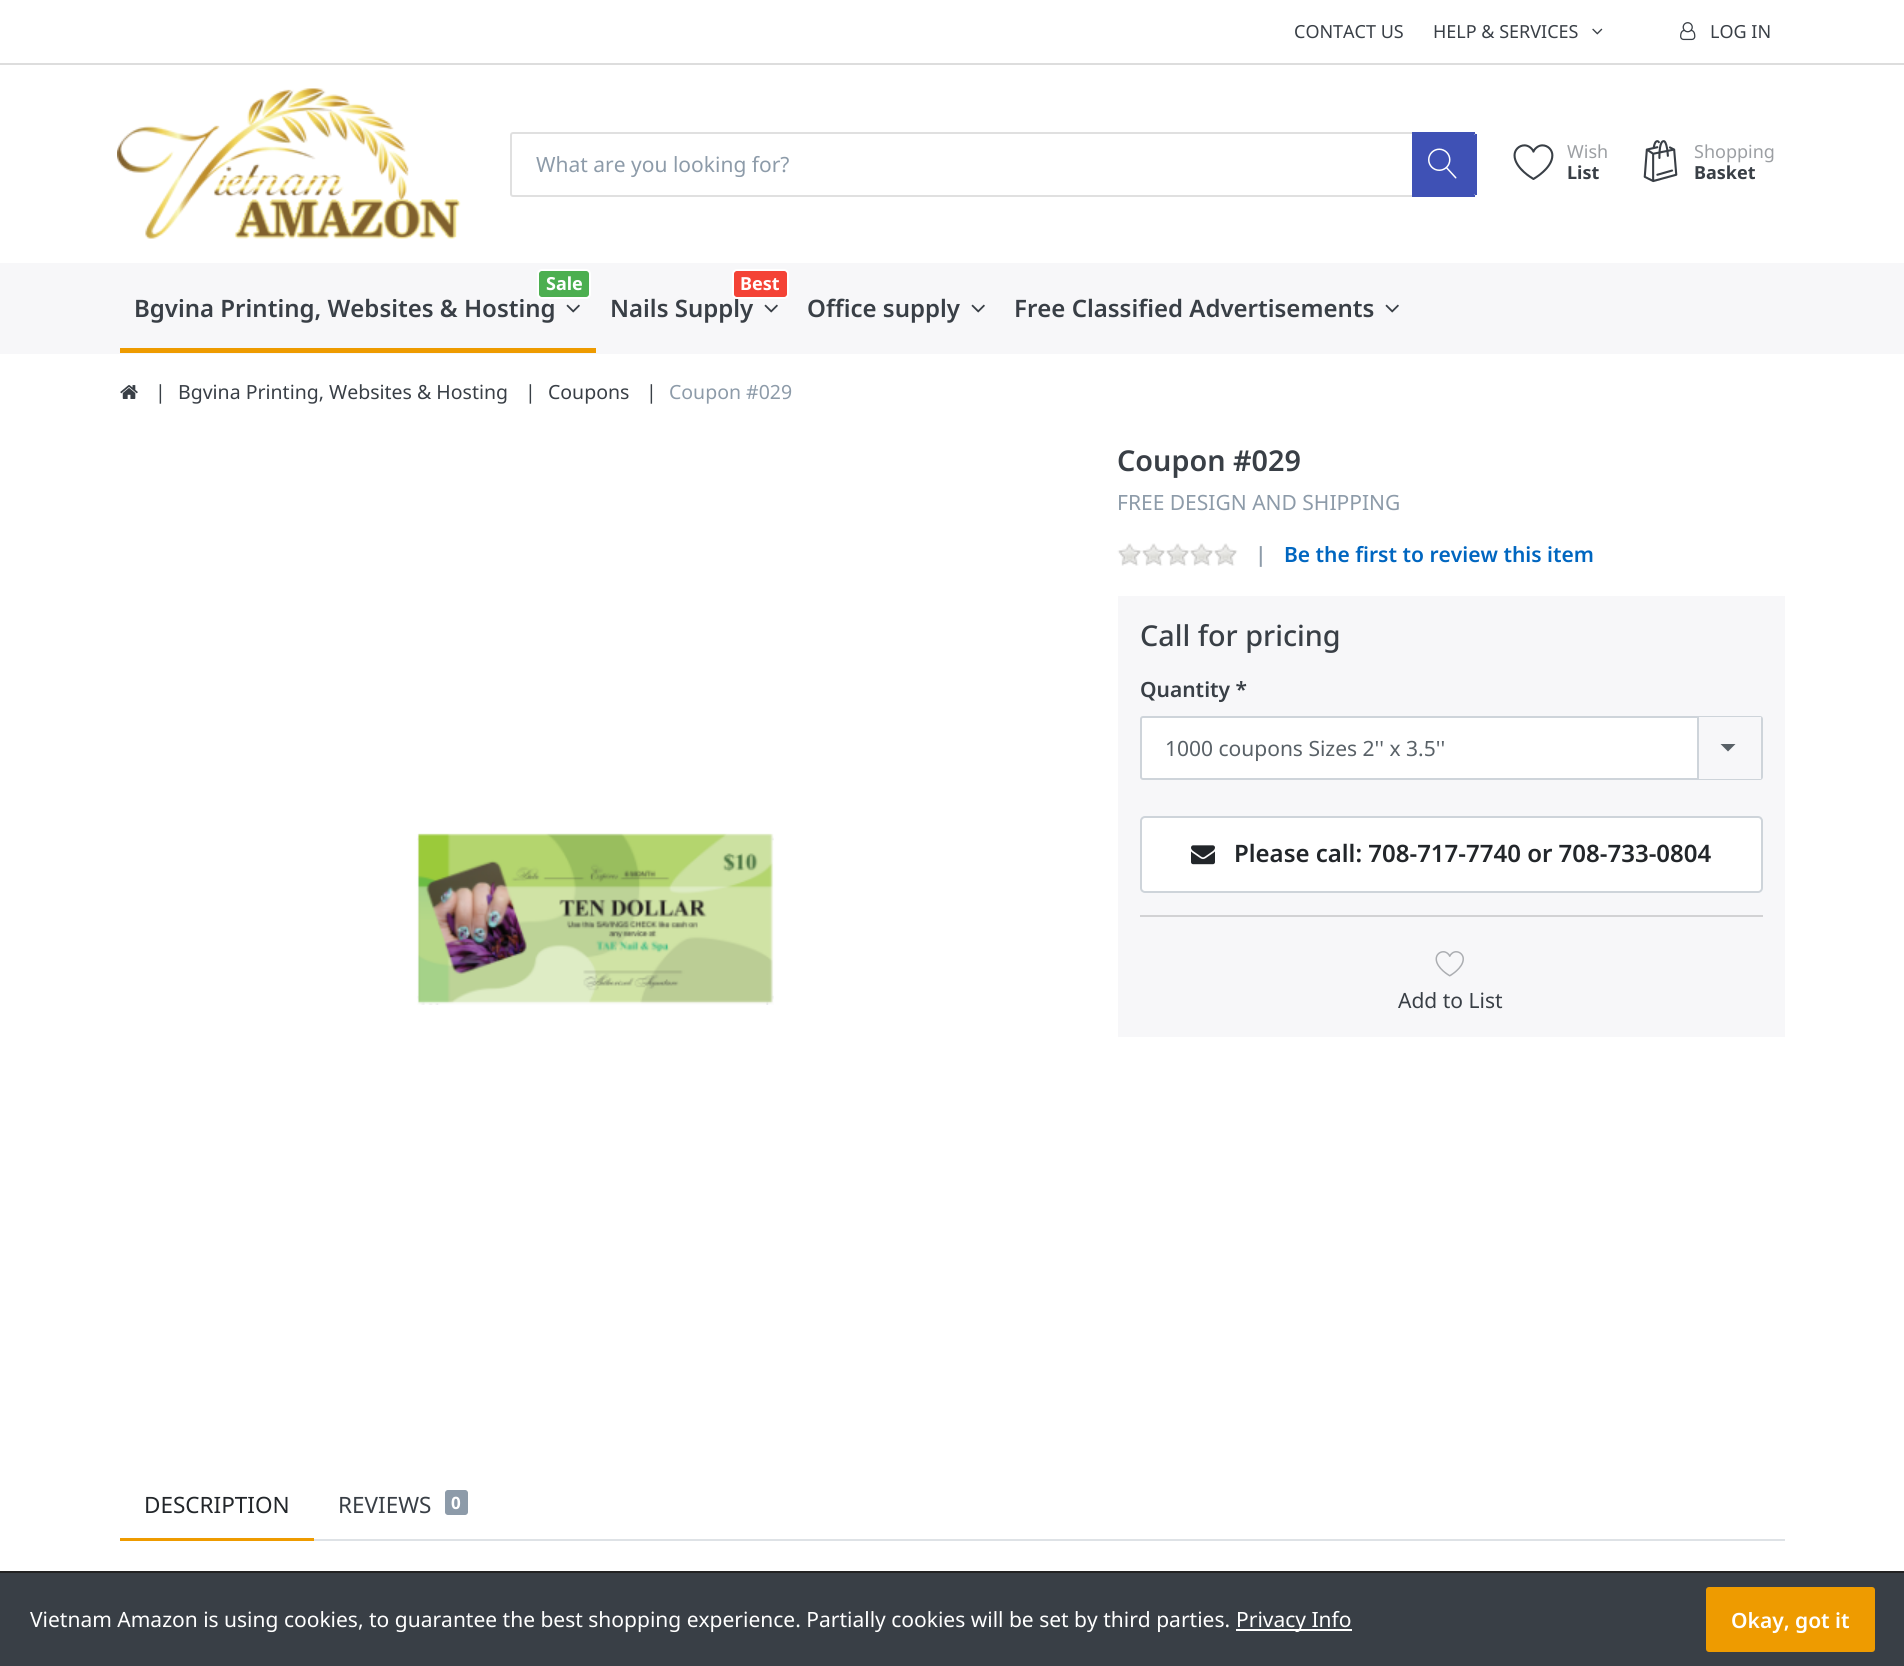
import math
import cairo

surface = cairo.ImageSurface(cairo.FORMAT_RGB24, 1904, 1666)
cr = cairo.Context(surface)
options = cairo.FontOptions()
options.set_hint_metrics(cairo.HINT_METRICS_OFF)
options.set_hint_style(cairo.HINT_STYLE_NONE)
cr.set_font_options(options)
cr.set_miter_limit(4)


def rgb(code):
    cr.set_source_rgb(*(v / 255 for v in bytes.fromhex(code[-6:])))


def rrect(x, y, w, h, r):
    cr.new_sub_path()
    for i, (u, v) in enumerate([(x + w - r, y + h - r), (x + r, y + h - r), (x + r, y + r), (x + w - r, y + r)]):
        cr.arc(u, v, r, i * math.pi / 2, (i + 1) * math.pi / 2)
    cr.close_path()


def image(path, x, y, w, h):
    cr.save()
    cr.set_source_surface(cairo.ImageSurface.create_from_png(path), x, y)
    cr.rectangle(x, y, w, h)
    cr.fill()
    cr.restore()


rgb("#ffffff")
cr.paint()
rgb("#dddddd")
cr.rectangle(0, 63, 1904, 2)
cr.fill()
image("img/1.png", 1592, 28, 11, 7)
image("img/2.png", 1680, 22, 16, 19)
image("img/3.png", 117, 88, 344, 151)
rrect(511, 133, 964, 63, 2)
rgb("#e0e0e0")
cr.stroke()
rgb("#3f51b5")
cr.new_path()
cr.move_to(1412, 134)
cr.line_to(1473.5, 134)
cr.curve_to(1474.5, 134, 1475, 134.5, 1475, 135.5)
cr.line_to(1475, 193.5)
cr.curve_to(1475, 194.5, 1474.5, 195, 1473.5, 195)
cr.line_to(1412, 195)
cr.close_path()
cr.fill()
for x, y, w, h, color in [
    (1412, 132, 63, 2, "#3f51b5"),
    (1475, 134, 2, 61, "#3f51b5"),
    (1412, 195, 63, 2, "#3f51b5"),
]:
    rgb(color)
    cr.rectangle(x, y, w, h)
    cr.fill()
image("img/4.png", 1428, 148, 29, 31)
image("img/5.png", 1513, 144, 41, 36)
image("img/6.png", 1643, 140, 35, 43)
rgb("#f7f7f9")
cr.rectangle(0, 263, 1904, 91)
cr.fill()
image("img/7.png", 566, 304, 14, 9)
rgb("#ee9b00")
cr.rectangle(120, 348, 476, 5)
cr.fill()
image("img/7.png", 764, 304, 14, 9)
image("img/7.png", 971, 304, 14, 9)
image("img/7.png", 1385, 304, 14, 9)
image("img/8.png", 120, 385, 18, 14)
image("img/9.png", 417, 833, 357, 172)
image("img/10.png", 1117, 543, 121, 23)
rgb("#f7f7f9")
cr.rectangle(1118, 596, 667, 441)
cr.fill()
rgb("#ffffff")
rrect(1141, 717, 621, 62, 2)
cr.fill_preserve()
rgb("#ced4da")
cr.stroke()
rgb("#f7f7f9")
cr.rectangle(1699, 717, 62, 62)
cr.fill()
rgb("#ced4da")
cr.rectangle(1697, 717, 2, 62)
cr.fill()
rgb("#596167")
cr.new_path()
cr.move_to(1720.5, 744)
cr.line_to(1735.5, 744)
cr.line_to(1728, 751.5)
cr.close_path()
cr.fill()
rgb("#ffffff")
rrect(1141, 817, 621, 75, 4)
cr.fill_preserve()
rgb("#ced4da")
cr.stroke()
image("img/11.png", 1191, 845, 24, 20)
rgb("#d2d2d4")
cr.rectangle(1140, 915, 623, 2)
cr.fill()
image("img/12.png", 1435, 951, 29, 26)
rgb("#dee2e6")
cr.rectangle(314, 1539, 1471, 2)
cr.fill()
rgb("#ee9b00")
cr.rectangle(120, 1538, 194, 3)
cr.fill()
rgb("#8d9ba9")
rrect(444, 1489, 25, 27, 4)
cr.fill_preserve()
rgb("#ffffff")
cr.stroke()
for x, y, w, h, color in [
    (0, 1573, 1904, 93, "#393f46"),
    (0, 1571, 1904, 2, "#222222"),
    (1236, 1629, 116, 2, "#ffffff"),
]:
    rgb(color)
    cr.rectangle(x, y, w, h)
    cr.fill()
rgb("#ee9b00")
rrect(1707, 1588, 167, 63, 2)
cr.fill_preserve()
cr.stroke()
cr.select_font_face("Noto Sans")
cr.set_font_size(18)
rgb("#393f46")
for x, y, s in [
    (1294, 38, "CONTACT US"),
    (1433, 38, "HELP & SERVICES"),
    (1710, 38, "LOG IN"),
]:
    cr.move_to(x, y)
    cr.show_text(s)
cr.set_font_size(21)
rgb("#8d9ba9")
cr.move_to(536, 172)
cr.show_text("What are you looking for?")
cr.set_font_size(18)
rgb("#9c9fa3")
cr.move_to(1567, 158)
cr.show_text("Wish")
cr.select_font_face("Noto Sans", cairo.FONT_SLANT_NORMAL, cairo.FONT_WEIGHT_BOLD)
rgb("#393f46")
cr.move_to(1567, 179)
cr.show_text("List")
cr.select_font_face("Noto Sans")
rgb("#9c9fa3")
cr.move_to(1694, 158)
cr.show_text("Shopping")
cr.select_font_face("Noto Sans", cairo.FONT_SLANT_NORMAL, cairo.FONT_WEIGHT_BOLD)
rgb("#393f46")
cr.move_to(1694, 179)
cr.show_text("Basket")
cr.select_font_face("Noto Sans SemiBold")
cr.set_font_size(24)
cr.move_to(134, 317)
cr.show_text("Bgvina Printing, Websites & Hosting")
rgb("#4caf50")
rrect(538, 270, 52, 28, 4)
cr.fill_preserve()
rgb("#ffffff")
cr.stroke()
cr.select_font_face("Noto Sans", cairo.FONT_SLANT_NORMAL, cairo.FONT_WEIGHT_BOLD)
cr.set_font_size(18)
cr.move_to(546, 290)
cr.show_text("Sale")
cr.select_font_face("Noto Sans SemiBold")
cr.set_font_size(24)
rgb("#393f46")
cr.move_to(610, 317)
cr.show_text("Nails Supply")
rgb("#f44336")
rrect(733, 270, 55, 28, 4)
cr.fill_preserve()
rgb("#ffffff")
cr.stroke()
cr.select_font_face("Noto Sans", cairo.FONT_SLANT_NORMAL, cairo.FONT_WEIGHT_BOLD)
cr.set_font_size(18)
cr.move_to(740, 290)
cr.show_text("Best")
cr.select_font_face("Noto Sans SemiBold")
cr.set_font_size(24)
rgb("#393f46")
cr.move_to(807, 317)
cr.show_text("Office supply")
cr.move_to(1014, 317)
cr.show_text("Free Classified Advertisements")
cr.select_font_face("Noto Sans")
cr.set_font_size(19.5)
for x, y, s in [
    (155, 399, "|"),
    (178, 399, "Bgvina Printing, Websites & Hosting"),
    (525, 399, "|"),
    (548, 399, "Coupons"),
    (646, 399, "|"),
]:
    cr.move_to(x, y)
    cr.show_text(s)
rgb("#8d9ba9")
cr.move_to(669, 399)
cr.show_text("Coupon #029")
cr.select_font_face("Noto Sans SemiBold")
cr.set_font_size(28.75)
rgb("#393f46")
cr.move_to(1117, 471)
cr.show_text("Coupon #029")
cr.select_font_face("Noto Sans")
cr.set_font_size(21)
rgb("#8d9ba9")
cr.move_to(1117, 510)
cr.show_text("FREE DESIGN AND SHIPPING")
cr.select_font_face("Noto Sans SemiBold")
cr.move_to(1255, 562)
cr.show_text("|")
rgb("#0066c0")
cr.move_to(1284, 562)
cr.show_text("Be the first to review this item")
cr.select_font_face("Noto Sans Medium")
cr.set_font_size(28.75)
rgb("#393f46")
cr.move_to(1140, 646)
cr.show_text("Call for pricing")
cr.select_font_face("Noto Sans SemiBold")
cr.set_font_size(21)
cr.move_to(1140, 697)
cr.show_text("Quantity *")
cr.select_font_face("Noto Sans")
rgb("#596167")
cr.move_to(1165, 756)
cr.show_text("1000 coupons Sizes 2'' x 3.5''")
cr.select_font_face("Noto Sans SemiBold")
cr.set_font_size(24)
rgb("#22262a")
cr.move_to(1234, 862)
cr.show_text("Please call: 708-717-7740 or 708-733-0804")
cr.select_font_face("Noto Sans")
cr.set_font_size(21)
rgb("#393f46")
cr.move_to(1398, 1008)
cr.show_text("Add to List")
cr.set_font_size(22.5)
rgb("#22262a")
cr.move_to(144, 1513)
cr.show_text("DESCRIPTION")
rgb("#393f46")
cr.move_to(338, 1513)
cr.show_text("REVIEWS")
cr.select_font_face("Noto Sans", cairo.FONT_SLANT_NORMAL, cairo.FONT_WEIGHT_BOLD)
cr.set_font_size(17)
rgb("#ffffff")
cr.move_to(451, 1509)
cr.show_text("0")
cr.select_font_face("Noto Sans")
cr.set_font_size(21)
cr.move_to(30, 1627)
cr.show_text("Vietnam Amazon is using cookies, to guarantee the best shopping experience. Partially cookies will be set by third parties.")
cr.move_to(1236, 1627)
cr.show_text("Privacy Info")
cr.select_font_face("Noto Sans SemiBold")
cr.move_to(1731, 1628)
cr.show_text("Okay, got it")
surface.write_to_png("page.png")
